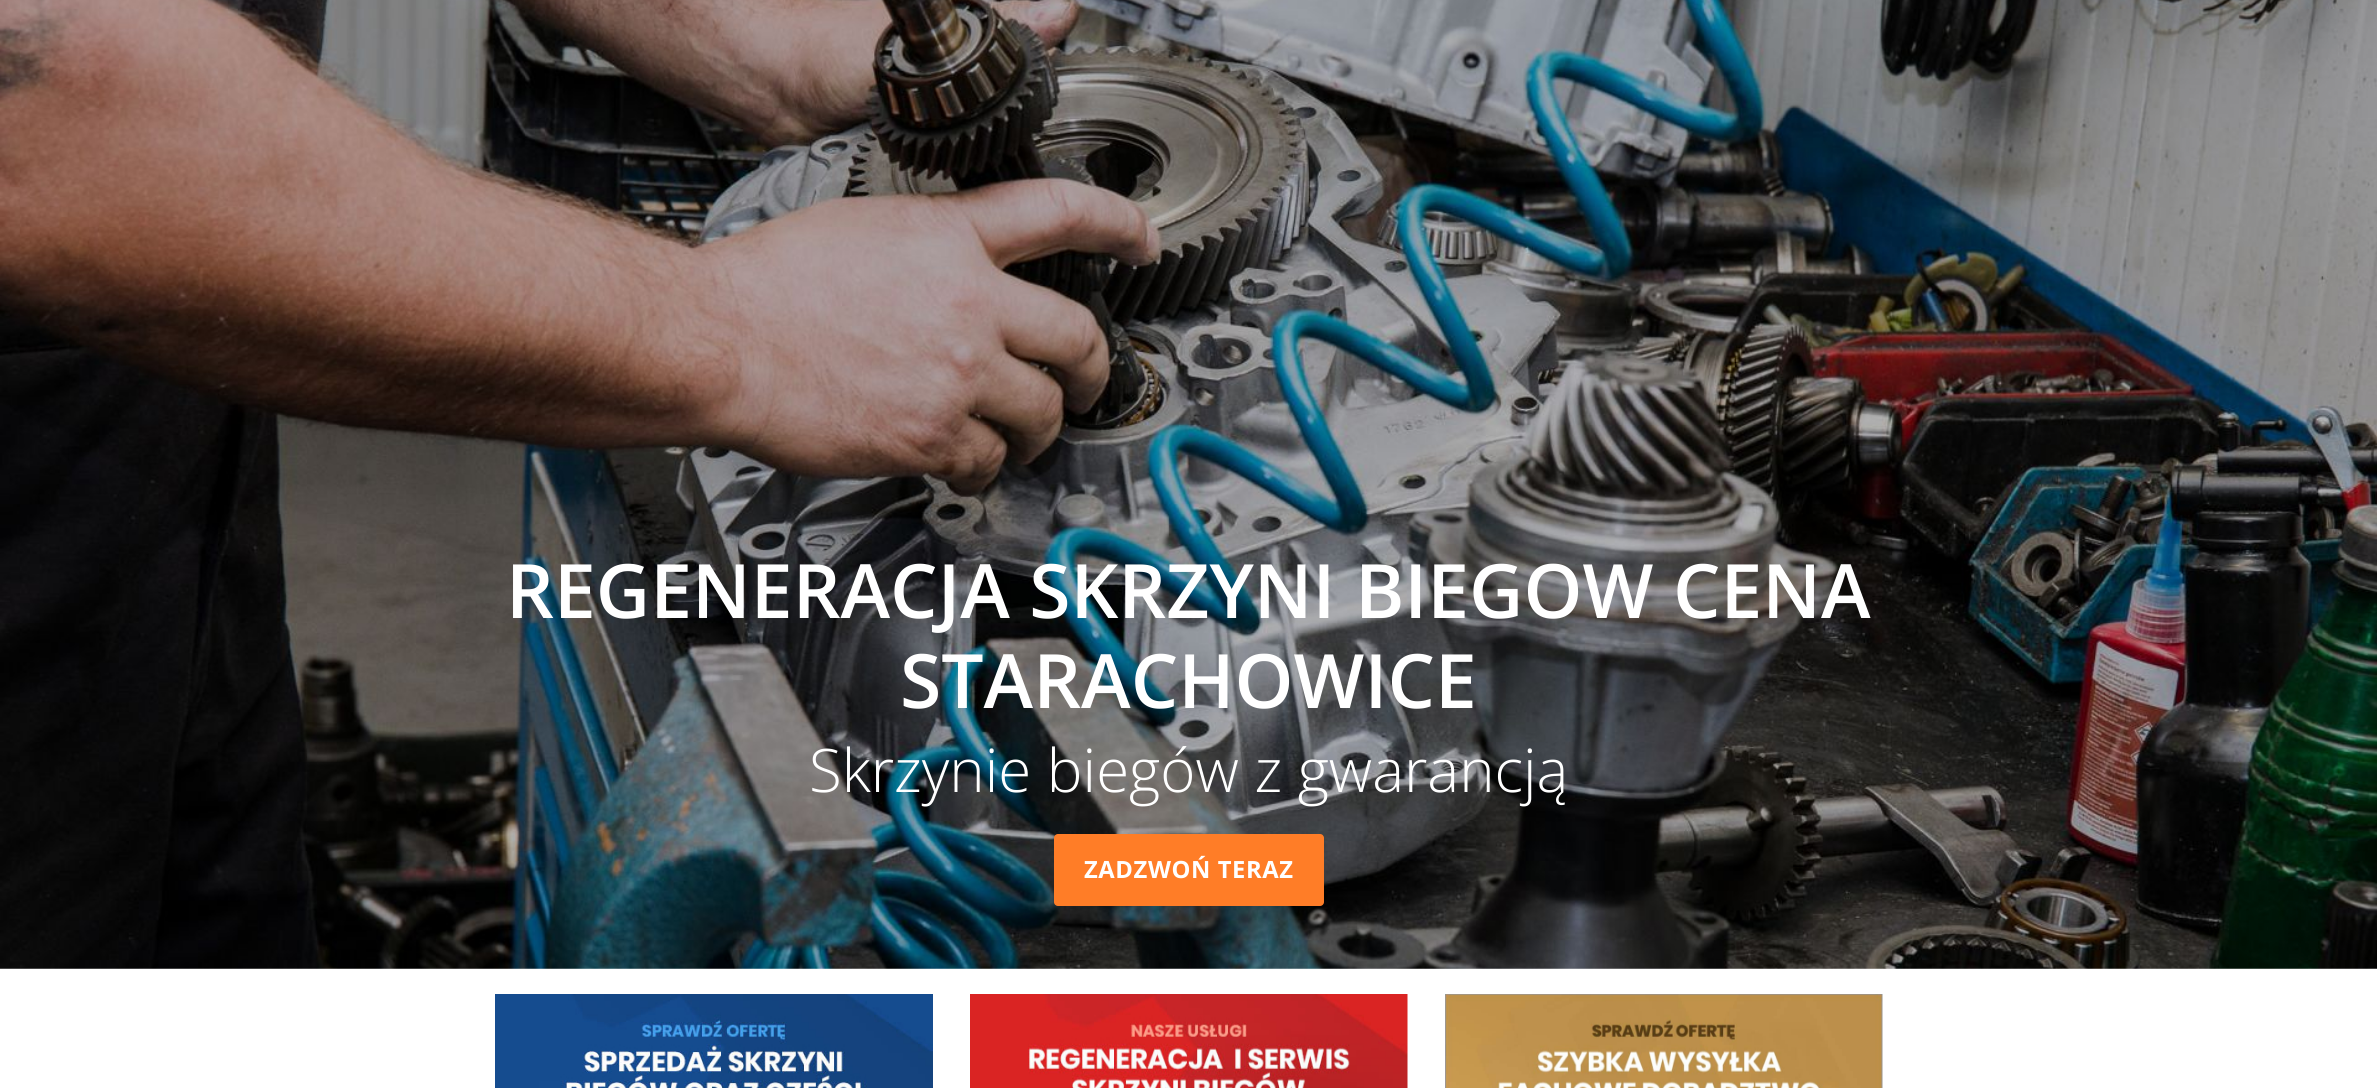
import math
import cairo

surface = cairo.ImageSurface(cairo.FORMAT_RGB24, 2377, 1088)
cr = cairo.Context(surface)
options = cairo.FontOptions()
options.set_hint_metrics(cairo.HINT_METRICS_OFF)
options.set_hint_style(cairo.HINT_STYLE_NONE)
cr.set_font_options(options)
cr.set_miter_limit(4)


def rgb(code):
    cr.set_source_rgb(*(v / 255 for v in bytes.fromhex(code[-6:])))


def tracked(x, y, s, letter, word):
    cr.move_to(x, y)
    for ch in s:
        cr.show_text(ch)
        cr.rel_move_to(letter + word * (ch == ' '), 0)


def rrect(x, y, w, h, r):
    cr.new_sub_path()
    for i, (u, v) in enumerate([(x + w - r, y + h - r), (x + r, y + h - r), (x + r, y + r), (x + w - r, y + r)]):
        cr.arc(u, v, r, i * math.pi / 2, (i + 1) * math.pi / 2)
    cr.close_path()


def image(path, x, y, w, h):
    cr.save()
    cr.set_source_surface(cairo.ImageSurface.create_from_png(path), x, y)
    cr.rectangle(x, y, w, h)
    cr.fill()
    cr.restore()


rgb("#ffffff")
cr.paint()
image("img/1.png", 0, 0, 2377, 969)
rgb("#ff7d27")
rrect(1054, 834, 270, 72, 4)
cr.fill()
image("img/2.png", 495, 994, 438, 94)
image("img/3.png", 970, 994, 438, 94)
image("img/4.png", 1445, 994, 438, 94)
cr.select_font_face("Open Sans SemiBold")
cr.set_font_size(75)
rgb("#ffffff")
cr.move_to(506, 618)
cr.show_text("REGENERACJA SKRZYNI BIEGOW CENA")
cr.move_to(900, 708)
cr.show_text("STARACHOWICE")
cr.select_font_face("Open Sans Light")
cr.set_font_size(60)
cr.move_to(809, 792)
cr.show_text("Skrzynie biegów z gwarancją")
cr.select_font_face("Open Sans", cairo.FONT_SLANT_NORMAL, cairo.FONT_WEIGHT_BOLD)
cr.set_font_size(23.75)
tracked(1084, 878, "ZADZWOŃ TERAZ", 0.6, 0)
surface.write_to_png("page.png")
